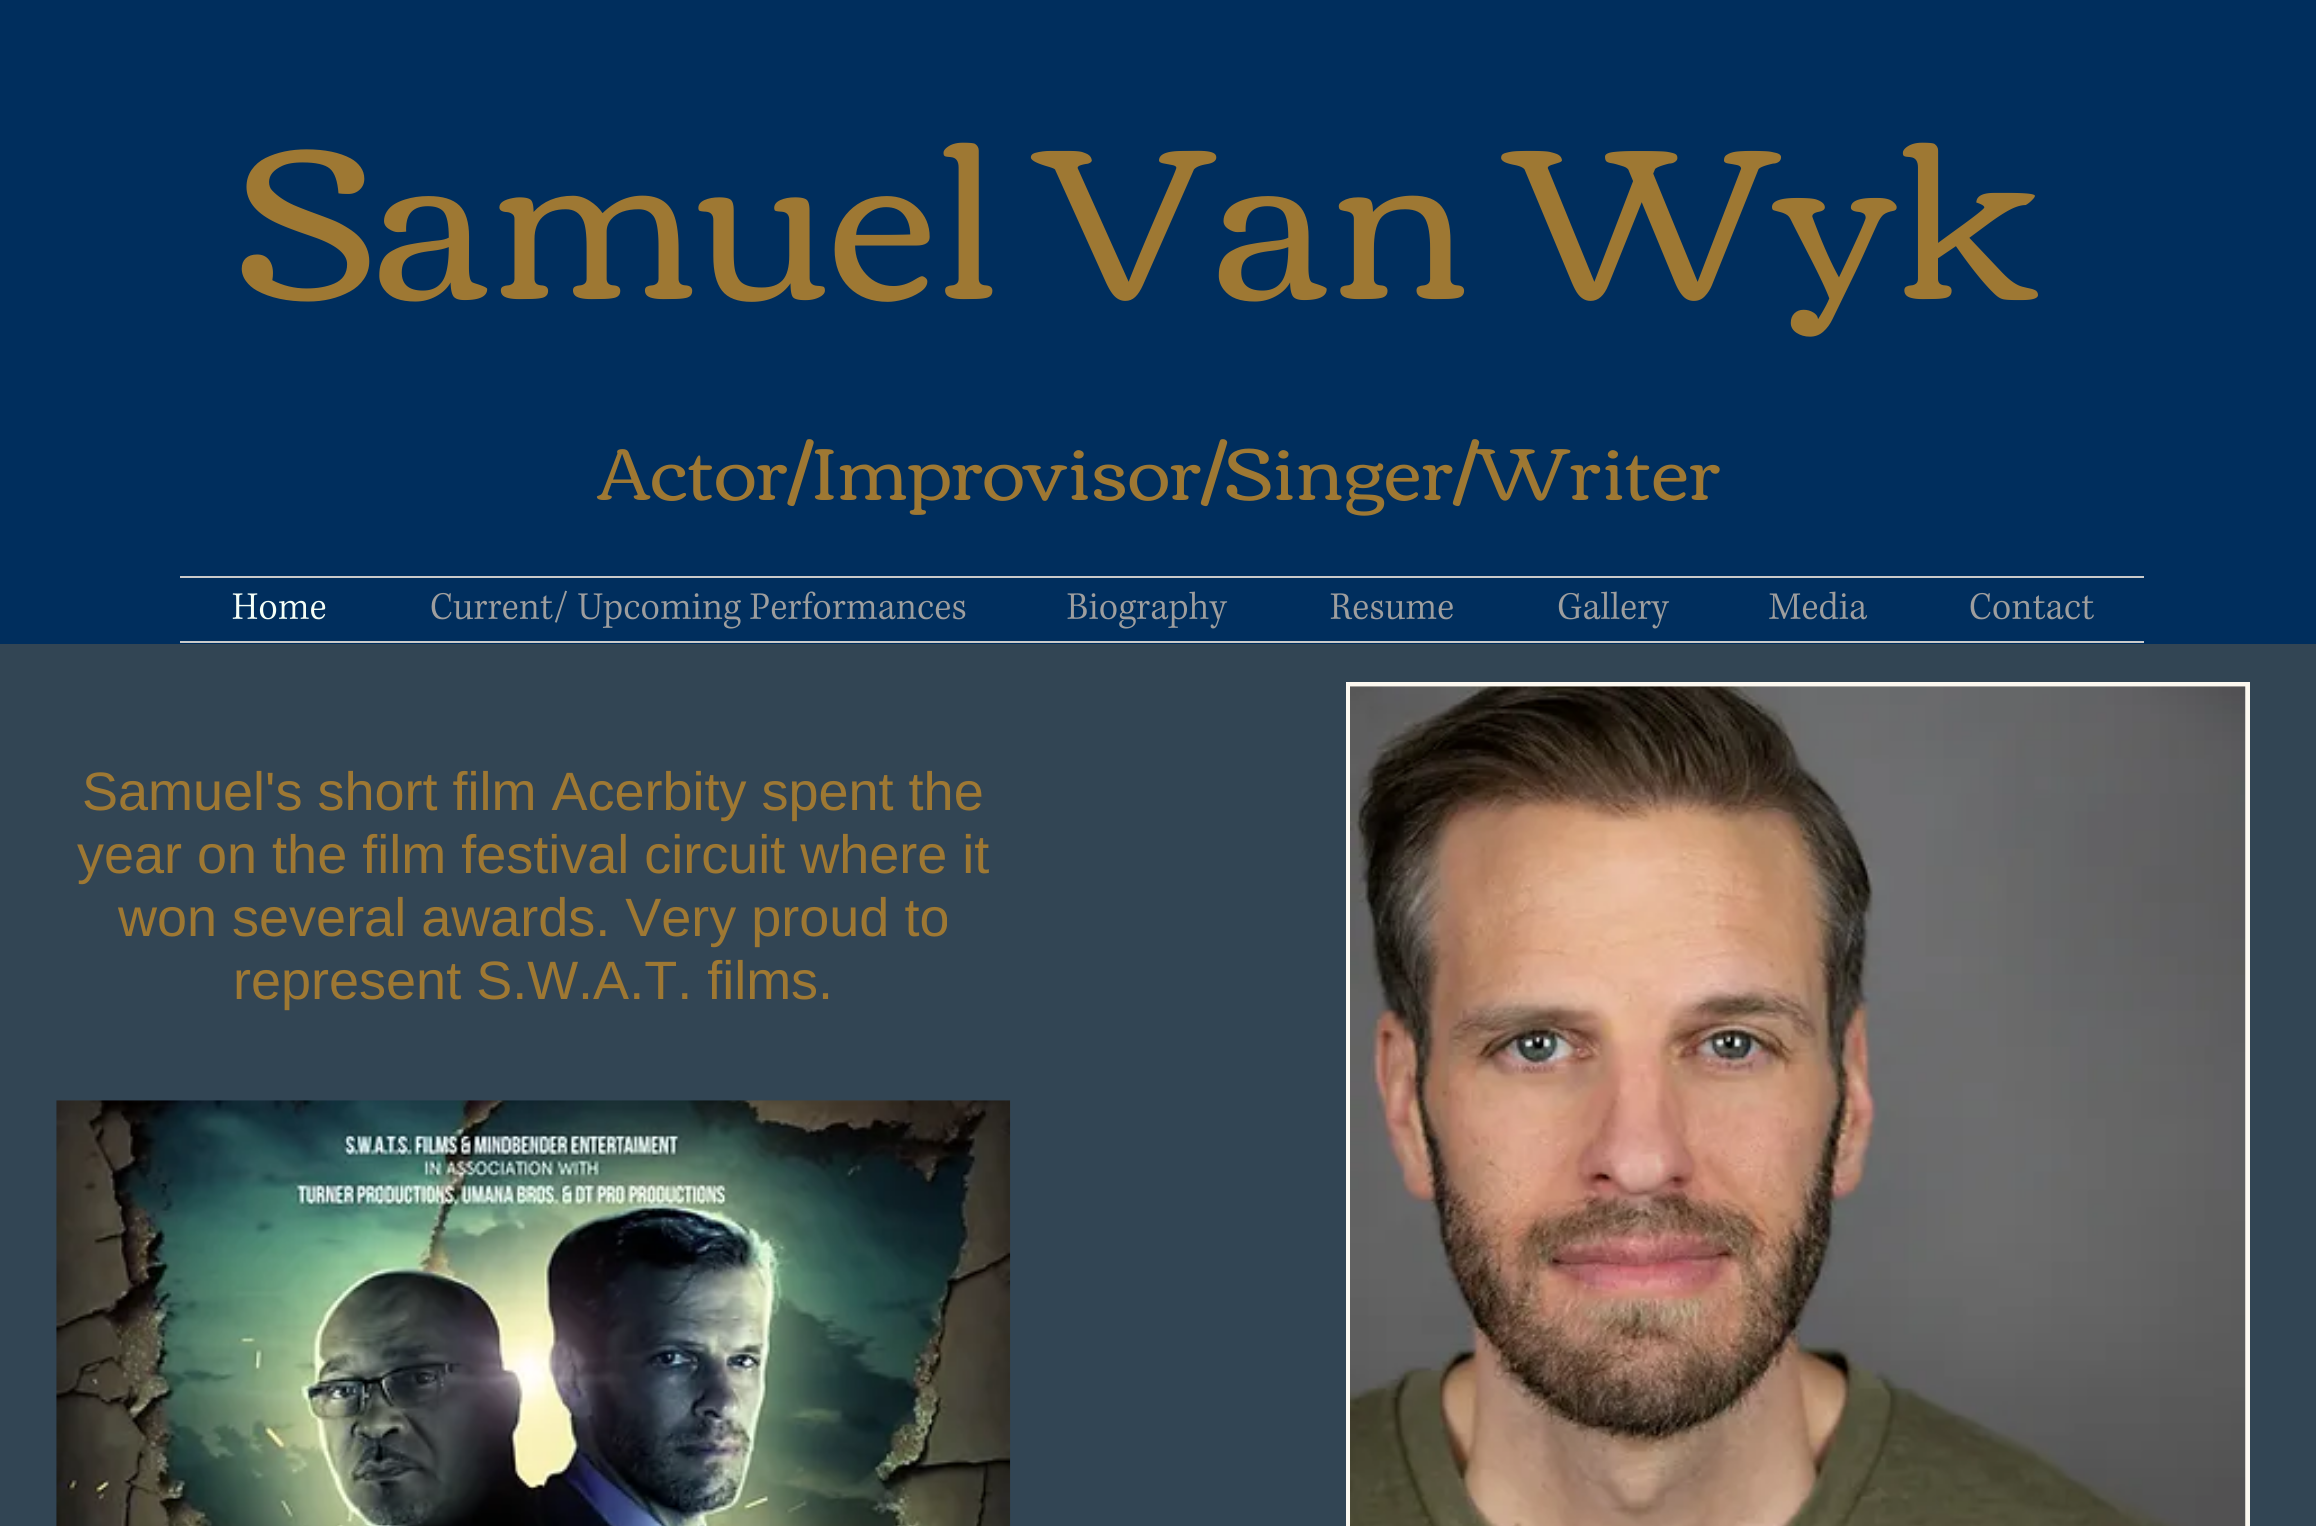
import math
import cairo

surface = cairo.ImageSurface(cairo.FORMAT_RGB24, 2316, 1526)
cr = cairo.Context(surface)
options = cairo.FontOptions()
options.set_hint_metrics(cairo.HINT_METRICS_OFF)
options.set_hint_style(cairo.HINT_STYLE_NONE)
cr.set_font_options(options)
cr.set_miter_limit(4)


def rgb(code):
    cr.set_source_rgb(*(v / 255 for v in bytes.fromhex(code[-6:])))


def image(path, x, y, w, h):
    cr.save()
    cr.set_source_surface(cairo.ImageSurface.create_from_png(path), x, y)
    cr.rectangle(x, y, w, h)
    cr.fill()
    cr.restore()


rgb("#002e5d")
cr.paint()
rgb("#cacaca")
cr.rectangle(180, 576, 1964, 2)
cr.fill()
cr.rectangle(180, 641, 1964, 2)
cr.fill()
image("img/1.png", 232, 593, 94, 27)
image("img/2.png", 431, 590, 535, 39)
image("img/3.png", 1067, 591, 161, 38)
image("img/4.png", 1330, 593, 123, 27)
image("img/5.png", 1558, 591, 112, 38)
image("img/6.png", 1769, 591, 99, 29)
image("img/7.png", 1970, 592, 124, 28)
rgb("#324554")
cr.rectangle(0, 644, 2316, 882)
cr.fill()
rgb("#fcf8f0")
cr.rectangle(1346, 682, 904, 844)
cr.fill()
image("img/8.png", 1350, 686, 896, 840)
image("img/9.png", 56, 1100, 955, 426)
cr.select_font_face("Corben")
cr.set_font_size(216)
rgb("#9e7833")
cr.move_to(237, 299)
cr.show_text("Samuel Van Wyk")
cr.set_font_size(74.25)
cr.move_to(597, 500)
cr.show_text("Actor/Improvisor/Singer/Writer")
cr.select_font_face("Liberation Sans")
cr.set_font_size(54)
for x, y, s in [
    (82, 810, "Samuel's short film Acerbity spent the"),
    (77, 873, "year on the film festival circuit where it"),
    (118, 936, "won several awards. Very proud to"),
    (233, 999, "represent S.W.A.T. films."),
]:
    cr.move_to(x, y)
    cr.show_text(s)
surface.write_to_png("page.png")
